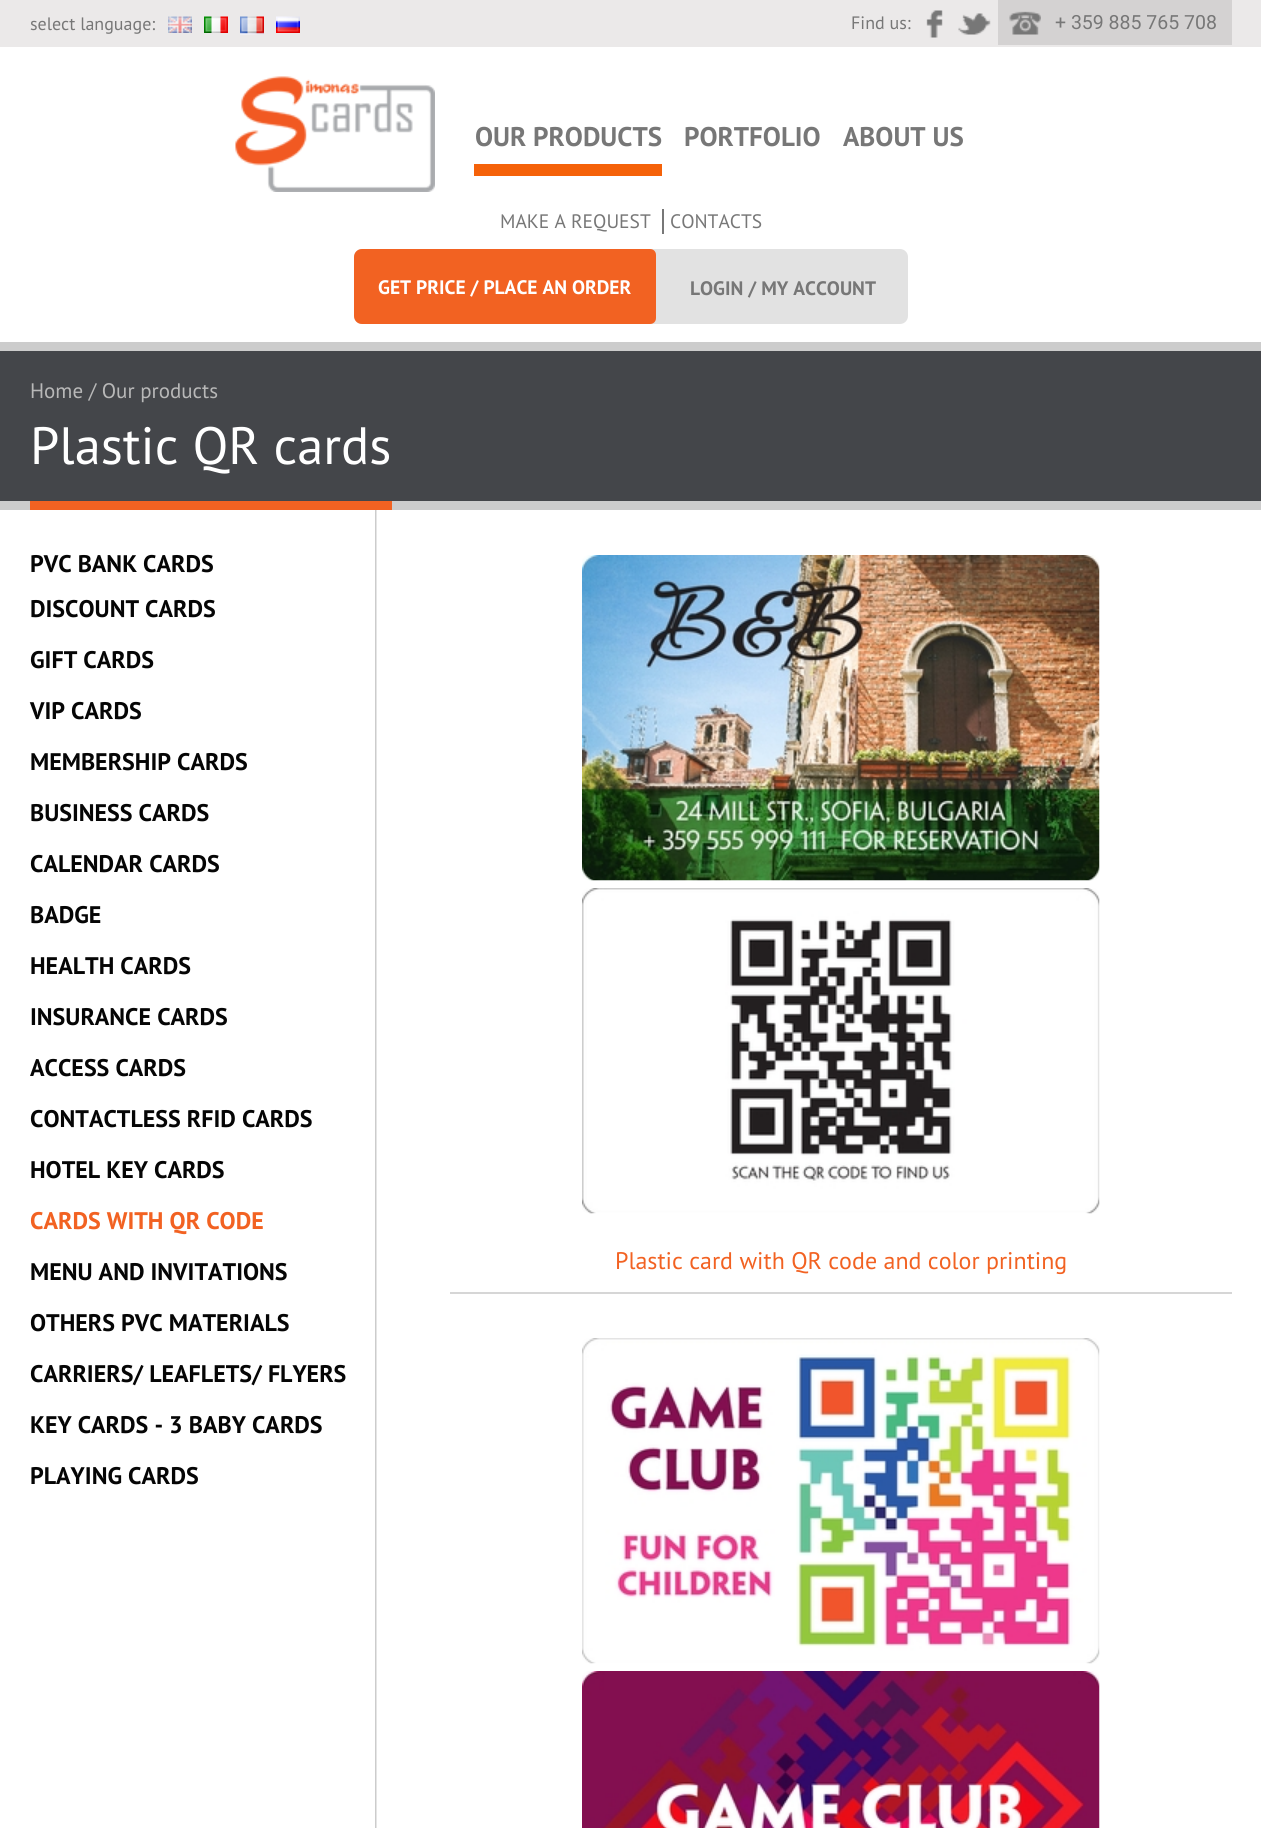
import math
import cairo

surface = cairo.ImageSurface(cairo.FORMAT_RGB24, 1261, 1828)
cr = cairo.Context(surface)
options = cairo.FontOptions()
options.set_hint_metrics(cairo.HINT_METRICS_OFF)
options.set_hint_style(cairo.HINT_STYLE_NONE)
cr.set_font_options(options)
cr.set_miter_limit(4)


def rgb(code):
    cr.set_source_rgb(*(v / 255 for v in bytes.fromhex(code[-6:])))


def rrect(x, y, w, h, r):
    cr.new_sub_path()
    for i, (u, v) in enumerate([(x + w - r, y + h - r), (x + r, y + h - r), (x + r, y + r), (x + w - r, y + r)]):
        cr.arc(u, v, r, i * math.pi / 2, (i + 1) * math.pi / 2)
    cr.close_path()


def image(path, x, y, w, h):
    cr.save()
    cr.set_source_surface(cairo.ImageSurface.create_from_png(path), x, y)
    cr.rectangle(x, y, w, h)
    cr.fill()
    cr.restore()


rgb("#ffffff")
cr.paint()
rgb("#ebe9e9")
cr.rectangle(0, 0, 1261, 47)
cr.fill()
image("img/1.png", 168, 16, 24, 17)
image("img/2.png", 204, 16, 24, 17)
image("img/3.png", 240, 16, 24, 19)
image("img/4.png", 276, 16, 24, 17)
image("img/5.png", 926, 10, 17, 28)
image("img/6.png", 958, 13, 33, 22)
rgb("#d4d2d2")
cr.rectangle(998, 0, 234, 45)
cr.fill()
image("img/7.png", 1009, 11, 32, 24)
image("img/8.png", 235, 76, 200, 116)
rgb("#f56209")
cr.rectangle(474, 164, 188, 12)
cr.fill()
rgb("#777777")
cr.rectangle(662, 209, 2, 25)
cr.fill()
rgb("#e2e2e2")
rrect(354, 249, 554, 75, 8)
cr.fill()
rgb("#f26222")
cr.new_path()
cr.move_to(362, 249)
cr.line_to(650, 249)
cr.curve_to(653.5, 249, 656, 251.5, 656, 255)
cr.line_to(656, 318)
cr.curve_to(656, 321.5, 653.5, 324, 650, 324)
cr.line_to(362, 324)
cr.curve_to(357.5, 324, 354, 320.5, 354, 316)
cr.line_to(354, 257)
cr.curve_to(354, 252.5, 357.5, 249, 362, 249)
cr.close_path()
cr.fill()
for x, y, w, h, color in [
    (0, 351, 1261, 150, "#44464a"),
    (0, 342, 1261, 9, "#cccccc"),
    (0, 501, 1261, 9, "#cccccc"),
    (30, 501, 362, 9, "#f26222"),
]:
    rgb(color)
    cr.rectangle(x, y, w, h)
    cr.fill()
image("img/9.png", 375, 510, 2, 1318)
rgb("#d6d6d6")
cr.rectangle(450, 1292, 782, 2)
cr.fill()
image("img/10.png", 582, 555, 518, 326)
image("img/11.png", 582, 888, 518, 326)
image("img/12.png", 582, 1338, 518, 326)
image("img/13.png", 582, 1671, 518, 157)
cr.select_font_face("PT Sans")
cr.set_font_size(18)
rgb("#777777")
cr.move_to(30, 30)
cr.show_text("select language:")
cr.move_to(851, 29)
cr.show_text("Find us:")
cr.select_font_face("Roboto")
cr.set_font_size(19.5)
cr.move_to(1055, 29)
cr.show_text("+ 359 885 765 708")
cr.select_font_face("PT Sans", cairo.FONT_SLANT_NORMAL, cairo.FONT_WEIGHT_BOLD)
cr.set_font_size(27)
for x, y, s in [
    (475, 146, "OUR PRODUCTS"),
    (684, 146, "PORTFOLIO"),
    (843, 146, "ABOUT US"),
]:
    cr.move_to(x, y)
    cr.show_text(s)
cr.select_font_face("PT Sans")
cr.set_font_size(19.5)
cr.move_to(500, 228)
cr.show_text("MAKE A REQUEST")
cr.move_to(670, 228)
cr.show_text("CONTACTS")
cr.select_font_face("PT Sans", cairo.FONT_SLANT_NORMAL, cairo.FONT_WEIGHT_BOLD)
rgb("#ffffff")
cr.move_to(378, 294)
cr.show_text("GET PRICE / PLACE AN ORDER")
rgb("#777777")
cr.move_to(690, 295)
cr.show_text("LOGIN / MY ACCOUNT")
cr.select_font_face("PT Sans")
cr.set_font_size(21)
rgb("#b8b8b8")
cr.move_to(30, 398)
cr.show_text("Home / Our products")
cr.set_font_size(52.5)
rgb("#ffffff")
cr.move_to(30, 464)
cr.show_text("Plastic QR cards")
cr.select_font_face("PT Sans", cairo.FONT_SLANT_NORMAL, cairo.FONT_WEIGHT_BOLD)
cr.set_font_size(24)
rgb("#050505")
for x, y, s in [
    (30, 572, "PVC BANK CARDS"),
    (30, 617, "DISCOUNT CARDS"),
    (30, 668, "GIFT CARDS"),
    (30, 719, "VIP CARDS"),
    (30, 770, "MEMBERSHIP CARDS"),
    (30, 821, "BUSINESS CARDS"),
    (30, 872, "CALENDAR CARDS"),
    (30, 923, "BADGE"),
    (30, 974, "HEALTH CARDS"),
    (30, 1025, "INSURANCE CARDS"),
    (30, 1076, "ACCESS CARDS"),
    (30, 1127, "CONTACTLESS RFID CARDS"),
    (30, 1178, "HOTEL KEY CARDS"),
]:
    cr.move_to(x, y)
    cr.show_text(s)
rgb("#f26222")
cr.move_to(30, 1229)
cr.show_text("CARDS WITH QR CODE")
rgb("#050505")
for x, y, s in [
    (30, 1280, "MENU AND INVITATIONS"),
    (30, 1331, "OTHERS PVC MATERIALS"),
    (30, 1382, "CARRIERS/ LEAFLETS/ FLYERS"),
    (30, 1433, "KEY CARDS - 3 BABY CARDS"),
    (30, 1484, "PLAYING CARDS"),
]:
    cr.move_to(x, y)
    cr.show_text(s)
cr.select_font_face("PT Sans")
rgb("#f26222")
cr.move_to(615, 1269)
cr.show_text("Plastic card with QR code and color printing")
surface.write_to_png("page.png")
